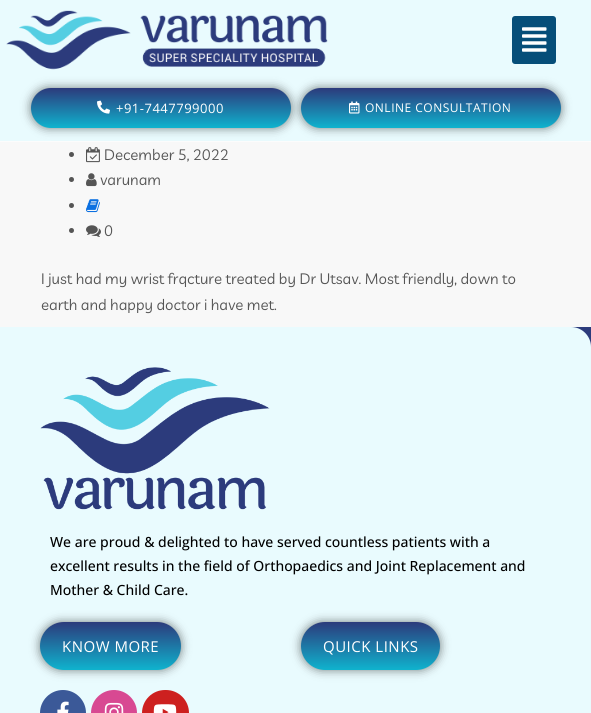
import math
import cairo

surface = cairo.ImageSurface(cairo.FORMAT_RGB24, 591, 713)
cr = cairo.Context(surface)
options = cairo.FontOptions()
options.set_hint_metrics(cairo.HINT_METRICS_OFF)
options.set_hint_style(cairo.HINT_STYLE_NONE)
cr.set_font_options(options)
cr.set_miter_limit(4)


def rgb(code):
    cr.set_source_rgb(*(v / 255 for v in bytes.fromhex(code[-6:])))


def tracked(x, y, s, letter, word):
    cr.move_to(x, y)
    for ch in s:
        cr.show_text(ch)
        cr.rel_move_to(letter + word * (ch == ' '), 0)


def rrect(x, y, w, h, r):
    cr.new_sub_path()
    for i, (u, v) in enumerate([(x + w - r, y + h - r), (x + r, y + h - r), (x + r, y + r), (x + w - r, y + r)]):
        cr.arc(u, v, r, i * math.pi / 2, (i + 1) * math.pi / 2)
    cr.close_path()


def soft_shadow(x, y, w, h, r, blur, alpha):
    cr.push_group_with_content(cairo.CONTENT_ALPHA)
    cr.set_operator(cairo.OPERATOR_SOURCE)
    for i in range(15, -16, -2):
        e = blur * i / 6
        if min(w, h) + 2 * e > 0:
            cr.set_source_rgba(0, 0, 0, alpha * math.erfc((i - 1) / 8.5) / 2)
            rrect(x - e, y - e, w + 2 * e, h + 2 * e, max(0, min(r + e + blur * .6, min(w, h) / 2 + e)))
            cr.fill()
    cr.mask(cr.pop_group())


def image(path, x, y, w, h):
    cr.save()
    cr.set_source_surface(cairo.ImageSurface.create_from_png(path), x, y)
    cr.rectangle(x, y, w, h)
    cr.fill()
    cr.restore()


rgb("#f8f8f8")
cr.paint()
rgb("#e9fbfe")
cr.rectangle(0, 0, 591, 141)
cr.fill()
rgb("#fcfcfc")
cr.rectangle(0, 141, 591, 1)
cr.fill()
image("img/1.png", 6, 10, 322, 60)
rgb("#064e79")
rrect(512, 16, 44, 48, 3)
cr.fill()
image("img/2.png", 522, 27, 25, 25)
rgb("#000000")
soft_shadow(31, 88, 260, 40, 20, 5, 0.5)
gradient = cairo.LinearGradient(161, 88, 161, 128)
gradient.add_color_stop_rgba(0, 0.173, 0.231, 0.486, 1)
gradient.add_color_stop_rgba(1, 0.059, 0.702, 0.808, 1)
cr.set_source(gradient)
rrect(31, 88, 260, 40, 20)
cr.fill()
image("img/3.png", 97, 100, 13, 14)
rgb("#000000")
soft_shadow(301, 88, 260, 40, 20, 5, 0.5)
gradient = cairo.LinearGradient(431, 88, 431, 128)
gradient.add_color_stop_rgba(0, 0.173, 0.231, 0.486, 1)
gradient.add_color_stop_rgba(1, 0.059, 0.702, 0.808, 1)
cr.set_source(gradient)
rrect(301, 88, 260, 40, 20)
cr.fill()
image("img/4.png", 349, 101, 11, 13)
rgb("#555555")
cr.arc(71.5, 154.5, 2.5, 0, 2 * math.pi)
cr.fill()
image("img/5.png", 86, 147, 14, 16)
cr.arc(71.5, 179.5, 2.5, 0, 2 * math.pi)
cr.fill()
image("img/6.png", 86, 173, 11, 14)
cr.arc(71.5, 205.5, 2.5, 0, 2 * math.pi)
cr.fill()
image("img/7.png", 86, 199, 14, 14)
cr.arc(71.5, 230.5, 2.5, 0, 2 * math.pi)
cr.fill()
image("img/8.png", 86, 225, 15, 12)
rgb("#2c3b7c")
cr.rectangle(571, 327, 20, 20)
cr.fill()
rgb("#e9fbfe")
cr.new_path()
cr.move_to(0, 327)
cr.line_to(571, 327)
cr.curve_to(582, 327, 591, 336, 591, 347)
cr.line_to(591, 713)
cr.curve_to(591, 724, 582, 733, 571, 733)
cr.line_to(0, 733)
cr.close_path()
cr.fill()
image("img/9.png", 40, 367, 230, 143)
rgb("#000000")
soft_shadow(40, 622, 141, 48, 24, 5, 0.5)
gradient = cairo.LinearGradient(111, 622, 111, 670)
gradient.add_color_stop_rgba(0, 0.173, 0.231, 0.486, 1)
gradient.add_color_stop_rgba(1, 0.059, 0.702, 0.808, 1)
cr.set_source(gradient)
rrect(40, 622, 141, 48, 24)
cr.fill()
rgb("#000000")
soft_shadow(301, 622, 139, 48, 24, 5, 0.5)
gradient = cairo.LinearGradient(371, 622, 371, 670)
gradient.add_color_stop_rgba(0, 0.173, 0.231, 0.486, 1)
gradient.add_color_stop_rgba(1, 0.059, 0.702, 0.808, 1)
cr.set_source(gradient)
rrect(301, 622, 139, 48, 24)
cr.fill()
rgb("#3b5998")
cr.arc(63, 713, 23, 0, 2 * math.pi)
cr.fill()
image("img/10.png", 57, 701, 12, 12)
rgb("#d84992")
cr.arc(114, 713, 23, 0, 2 * math.pi)
cr.fill()
image("img/11.png", 104, 702, 20, 11)
rgb("#cd201f")
rrect(142, 690, 47, 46, 23)
cr.fill()
image("img/12.png", 153, 704, 24, 9)
cr.select_font_face("Open Sans")
cr.set_font_size(13)
rgb("#ffffff")
tracked(116, 113, "+91-7447799000", 0.5, 0)
cr.set_font_size(12)
tracked(365, 112, "ONLINE CONSULTATION", 0.5, 0)
cr.select_font_face("Livvic")
cr.set_font_size(15)
rgb("#555555")
for x, y, s in [
    (104, 160, "December 5, 2022"),
    (100, 185, "varunam"),
    (104, 236, "0"),
    (41, 284, "I just had my wrist frqcture treated by Dr Utsav. Most friendly, down to"),
    (41, 310, "earth and happy doctor i have met."),
]:
    cr.move_to(x, y)
    cr.show_text(s)
cr.select_font_face("Open Sans Medium")
cr.set_font_size(14)
rgb("#000000")
for x, y, s in [
    (50, 547, "We are proud & delighted to have served countless patients with a"),
    (50, 571, "excellent results in the field of Orthopaedics and Joint Replacement and"),
    (50, 595, "Mother & Child Care."),
]:
    cr.move_to(x, y)
    cr.show_text(s)
cr.select_font_face("Open Sans")
cr.set_font_size(15)
rgb("#ffffff")
tracked(62, 652, "KNOW MORE", 0.5, 0)
tracked(323, 652, "QUICK LINKS", 0.5, 0)
surface.write_to_png("page.png")
